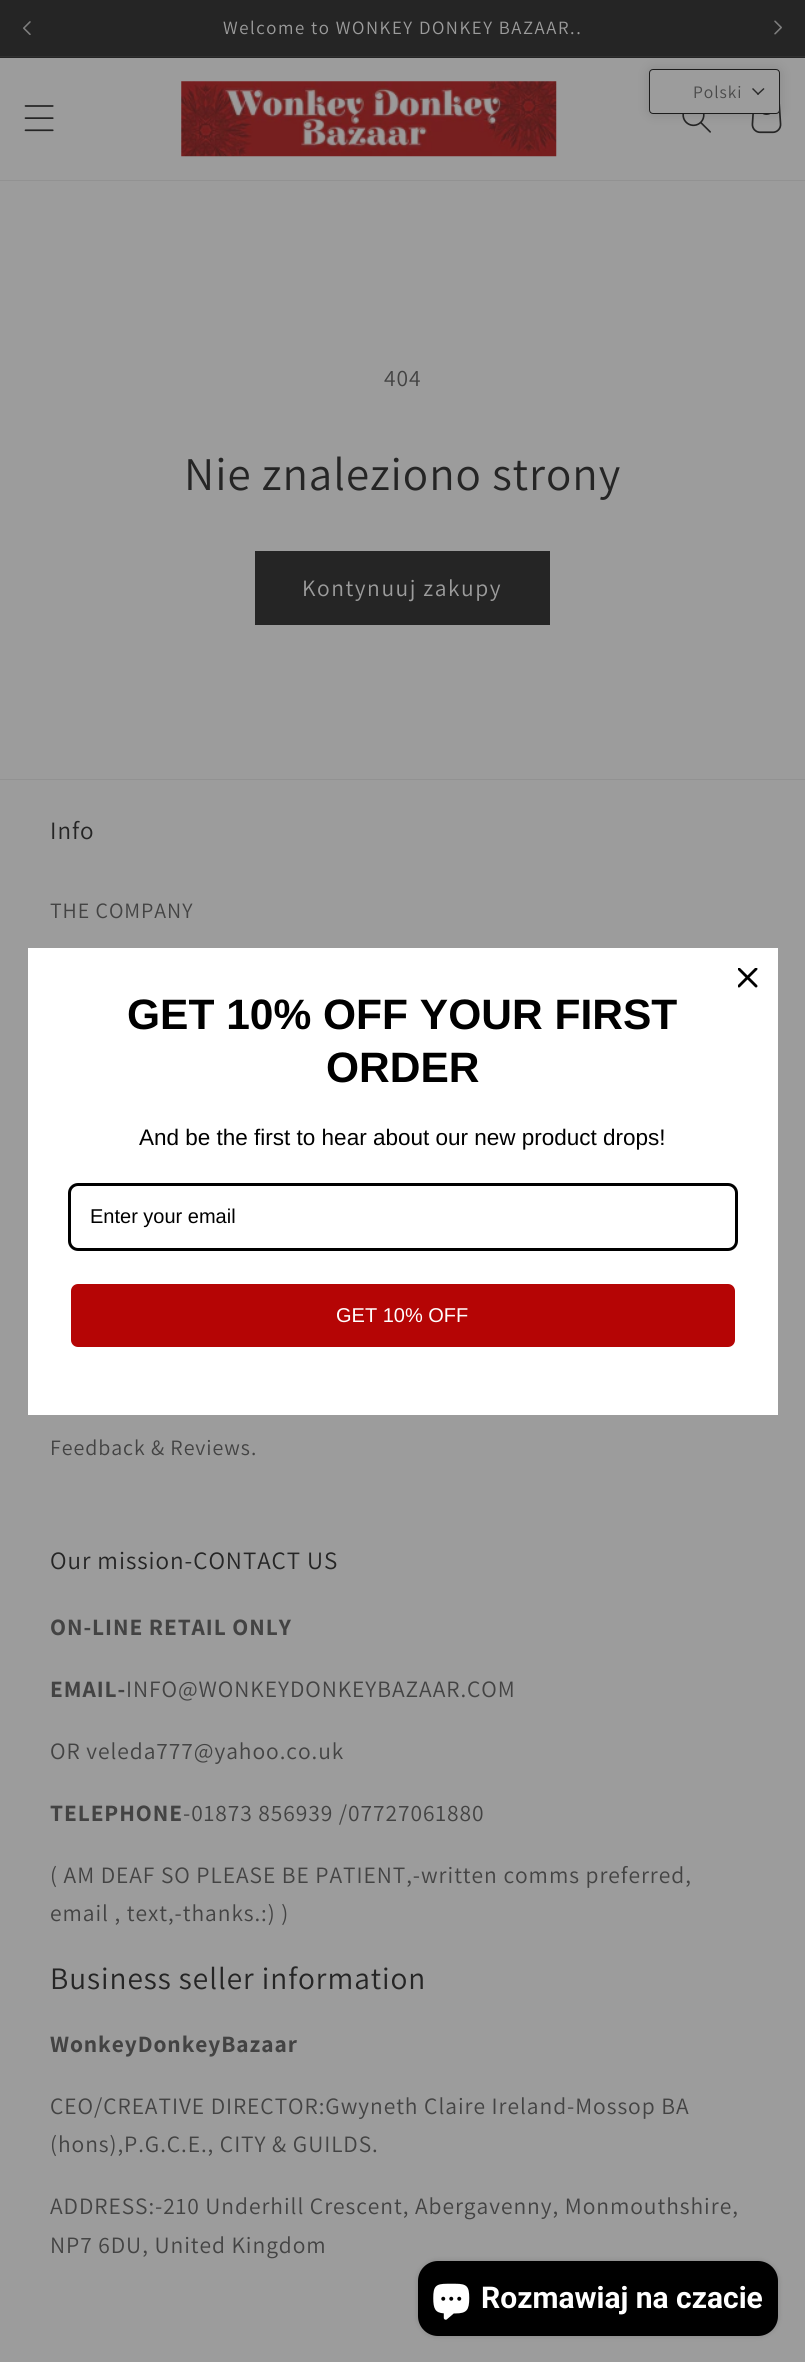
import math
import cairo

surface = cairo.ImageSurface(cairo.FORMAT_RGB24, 805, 2362)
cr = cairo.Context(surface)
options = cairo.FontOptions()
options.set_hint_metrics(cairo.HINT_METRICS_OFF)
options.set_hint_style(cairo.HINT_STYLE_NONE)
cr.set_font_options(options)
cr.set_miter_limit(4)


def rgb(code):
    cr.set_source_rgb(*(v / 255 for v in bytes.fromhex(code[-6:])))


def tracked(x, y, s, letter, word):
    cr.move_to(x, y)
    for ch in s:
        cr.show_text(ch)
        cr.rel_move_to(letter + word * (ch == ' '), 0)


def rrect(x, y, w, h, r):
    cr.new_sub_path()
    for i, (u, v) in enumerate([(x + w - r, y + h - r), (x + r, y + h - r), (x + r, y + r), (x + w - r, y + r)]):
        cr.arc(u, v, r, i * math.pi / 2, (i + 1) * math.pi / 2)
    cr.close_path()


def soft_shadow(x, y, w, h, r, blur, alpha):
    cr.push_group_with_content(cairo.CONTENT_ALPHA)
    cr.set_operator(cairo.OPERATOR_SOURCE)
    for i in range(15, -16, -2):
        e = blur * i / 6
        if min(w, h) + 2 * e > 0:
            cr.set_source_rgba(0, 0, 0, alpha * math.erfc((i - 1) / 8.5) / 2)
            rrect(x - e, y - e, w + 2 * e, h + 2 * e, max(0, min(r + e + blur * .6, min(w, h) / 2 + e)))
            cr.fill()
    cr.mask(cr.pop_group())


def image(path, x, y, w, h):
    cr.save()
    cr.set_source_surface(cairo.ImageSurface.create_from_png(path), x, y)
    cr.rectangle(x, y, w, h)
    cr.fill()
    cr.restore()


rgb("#9c9c9c")
cr.paint()
rgb("#252525")
cr.rectangle(0, 0, 805, 58)
cr.fill()
rgb("#2f2f2f")
cr.rectangle(0, 56, 805, 1)
cr.fill()
image("img/1.png", 23, 21, 8, 14)
image("img/2.png", 774, 20, 8, 15)
rgb("#929292")
cr.rectangle(0, 180, 805, 1)
cr.fill()
image("img/3.png", 24, 105, 30, 27)
image("img/4.png", 181, 81, 376, 76)
image("img/5.png", 682, 114, 29, 19)
image("img/6.png", 751, 104, 31, 30)
rgb("#1c1c1c")
soft_shadow(649, 69, 131, 45, 4, 6, 0.15)
rgb("#9c9c9c")
rrect(649.5, 69.5, 130, 44, 3.5)
cr.fill_preserve()
rgb("#1c1c1c")
cr.set_line_width(1)
cr.stroke()
rgb("#292929")
cr.new_path()
cr.move_to(763.5, 88)
cr.line_to(764.5, 89)
cr.line_to(758, 95)
cr.line_to(757, 94)
cr.close_path()
cr.fill()
cr.new_path()
cr.move_to(753, 88)
cr.line_to(759, 94)
cr.line_to(758, 95)
cr.line_to(752, 89)
cr.close_path()
cr.fill()
for x, y, w, h, color in [
    (255, 551, 295, 74, "#252525"),
    (0, 779, 805, 1, "#929292"),
    (28, 948, 750, 467, "#ffffff"),
]:
    rgb(color)
    cr.rectangle(x, y, w, h)
    cr.fill()
image("img/7.png", 738, 968, 20, 20)
rrect(69.5, 1184.5, 667, 65, 8.5)
rgb("#000000")
cr.set_line_width(3)
cr.stroke()
rgb("#b50505")
rrect(69.5, 1282.5, 667, 66, 8.5)
cr.fill_preserve()
rgb("#ffffff")
cr.stroke()
rgb("#000000")
soft_shadow(418, 2261, 360, 75, 20, 3, 0.15)
rgb("#000000")
rrect(418, 2261, 360, 75, 20)
cr.fill()
image("img/8.png", 433, 2283, 37, 37)
cr.select_font_face("Assistant")
cr.set_font_size(18.75)
rgb("#9c9c9c")
tracked(223, 34, "Welcome to WONKEY DONKEY BAZAAR..", 1.55, 0)
cr.set_font_size(17.5)
rgb("#4a4a4a")
tracked(693, 98, "Polski", 0.95, 0)
cr.set_font_size(23.45)
rgb("#434343")
tracked(384, 386, "404", 0.95, 0)
cr.set_font_size(46.9)
rgb("#252525")
tracked(184, 490, "Nie znaleziono strony", 0.95, 0)
cr.set_font_size(23.45)
rgb("#9c9c9c")
tracked(302, 596, "Kontynuuj zakupy", 1.55, 0)
cr.set_font_size(25)
rgb("#252525")
tracked(50, 839, "Info", 0.95, 0)
cr.set_font_size(21.9)
rgb("#434343")
tracked(50, 918, "THE COMPANY", 0.95, 0)
tracked(50, 1455, "Feedback & Reviews.", 0.95, 0)
cr.set_font_size(25)
rgb("#252525")
tracked(50, 1569, "Our mission-CONTACT US", 0.95, 0)
cr.select_font_face("Assistant", cairo.FONT_SLANT_NORMAL, cairo.FONT_WEIGHT_BOLD)
cr.set_font_size(23.45)
rgb("#434343")
tracked(50, 1635, "ON-LINE RETAIL ONLY", 0.95, 0)
tracked(50, 1697, "EMAIL-", 0.95, 0)
cr.select_font_face("Assistant")
tracked(126, 1697, "INFO@WONKEYDONKEYBAZAAR.COM", 0.95, 0)
tracked(50, 1759, "OR veleda777@yahoo.co.uk", 0.95, 0)
cr.select_font_face("Assistant", cairo.FONT_SLANT_NORMAL, cairo.FONT_WEIGHT_BOLD)
tracked(50, 1821, "TELEPHONE", 0.95, 0)
cr.select_font_face("Assistant")
for x, y, s in [
    (183, 1821, "-01873 856939 /07727061880"),
    (50, 1883, "( AM DEAF SO PLEASE BE PATIENT,-written comms preferred,"),
    (50, 1921, "email , text,-thanks.:) )"),
]:
    tracked(x, y, s, 0.95, 0)
cr.set_font_size(31.25)
rgb("#252525")
tracked(50, 1989, "Business seller information", 0.95, 0)
cr.select_font_face("Assistant", cairo.FONT_SLANT_NORMAL, cairo.FONT_WEIGHT_BOLD)
cr.set_font_size(23.45)
rgb("#434343")
tracked(50, 2052, "WonkeyDonkeyBazaar", 0.95, 0)
cr.select_font_face("Assistant")
for x, y, s in [
    (50, 2114, "CEO/CREATIVE DIRECTOR:Gwyneth Claire Ireland-Mossop BA"),
    (50, 2152, "(hons),P.G.C.E., CITY & GUILDS."),
    (50, 2214, "ADDRESS:-210 Underhill Crescent, Abergavenny, Monmouthshire,"),
    (50, 2253, "NP7 6DU, United Kingdom"),
]:
    tracked(x, y, s, 0.95, 0)
cr.select_font_face("Liberation Sans", cairo.FONT_SLANT_NORMAL, cairo.FONT_WEIGHT_BOLD)
cr.set_font_size(42.5)
rgb("#000000")
cr.move_to(127, 1029)
cr.show_text("GET 10% OFF YOUR FIRST")
cr.move_to(326, 1082)
cr.show_text("ORDER")
cr.select_font_face("Liberation Sans")
cr.set_font_size(22.5)
cr.move_to(139, 1145)
cr.show_text("And be the first to hear about our new product drops!")
cr.set_font_size(20)
cr.move_to(90, 1223)
cr.show_text("Enter your email")
rgb("#ffffff")
cr.move_to(336, 1322)
cr.show_text("GET 10% OFF")
cr.select_font_face("Roboto", cairo.FONT_SLANT_NORMAL, cairo.FONT_WEIGHT_BOLD)
cr.set_font_size(30)
cr.move_to(481, 2308)
cr.show_text("Rozmawiaj na czacie")
surface.write_to_png("page.png")
